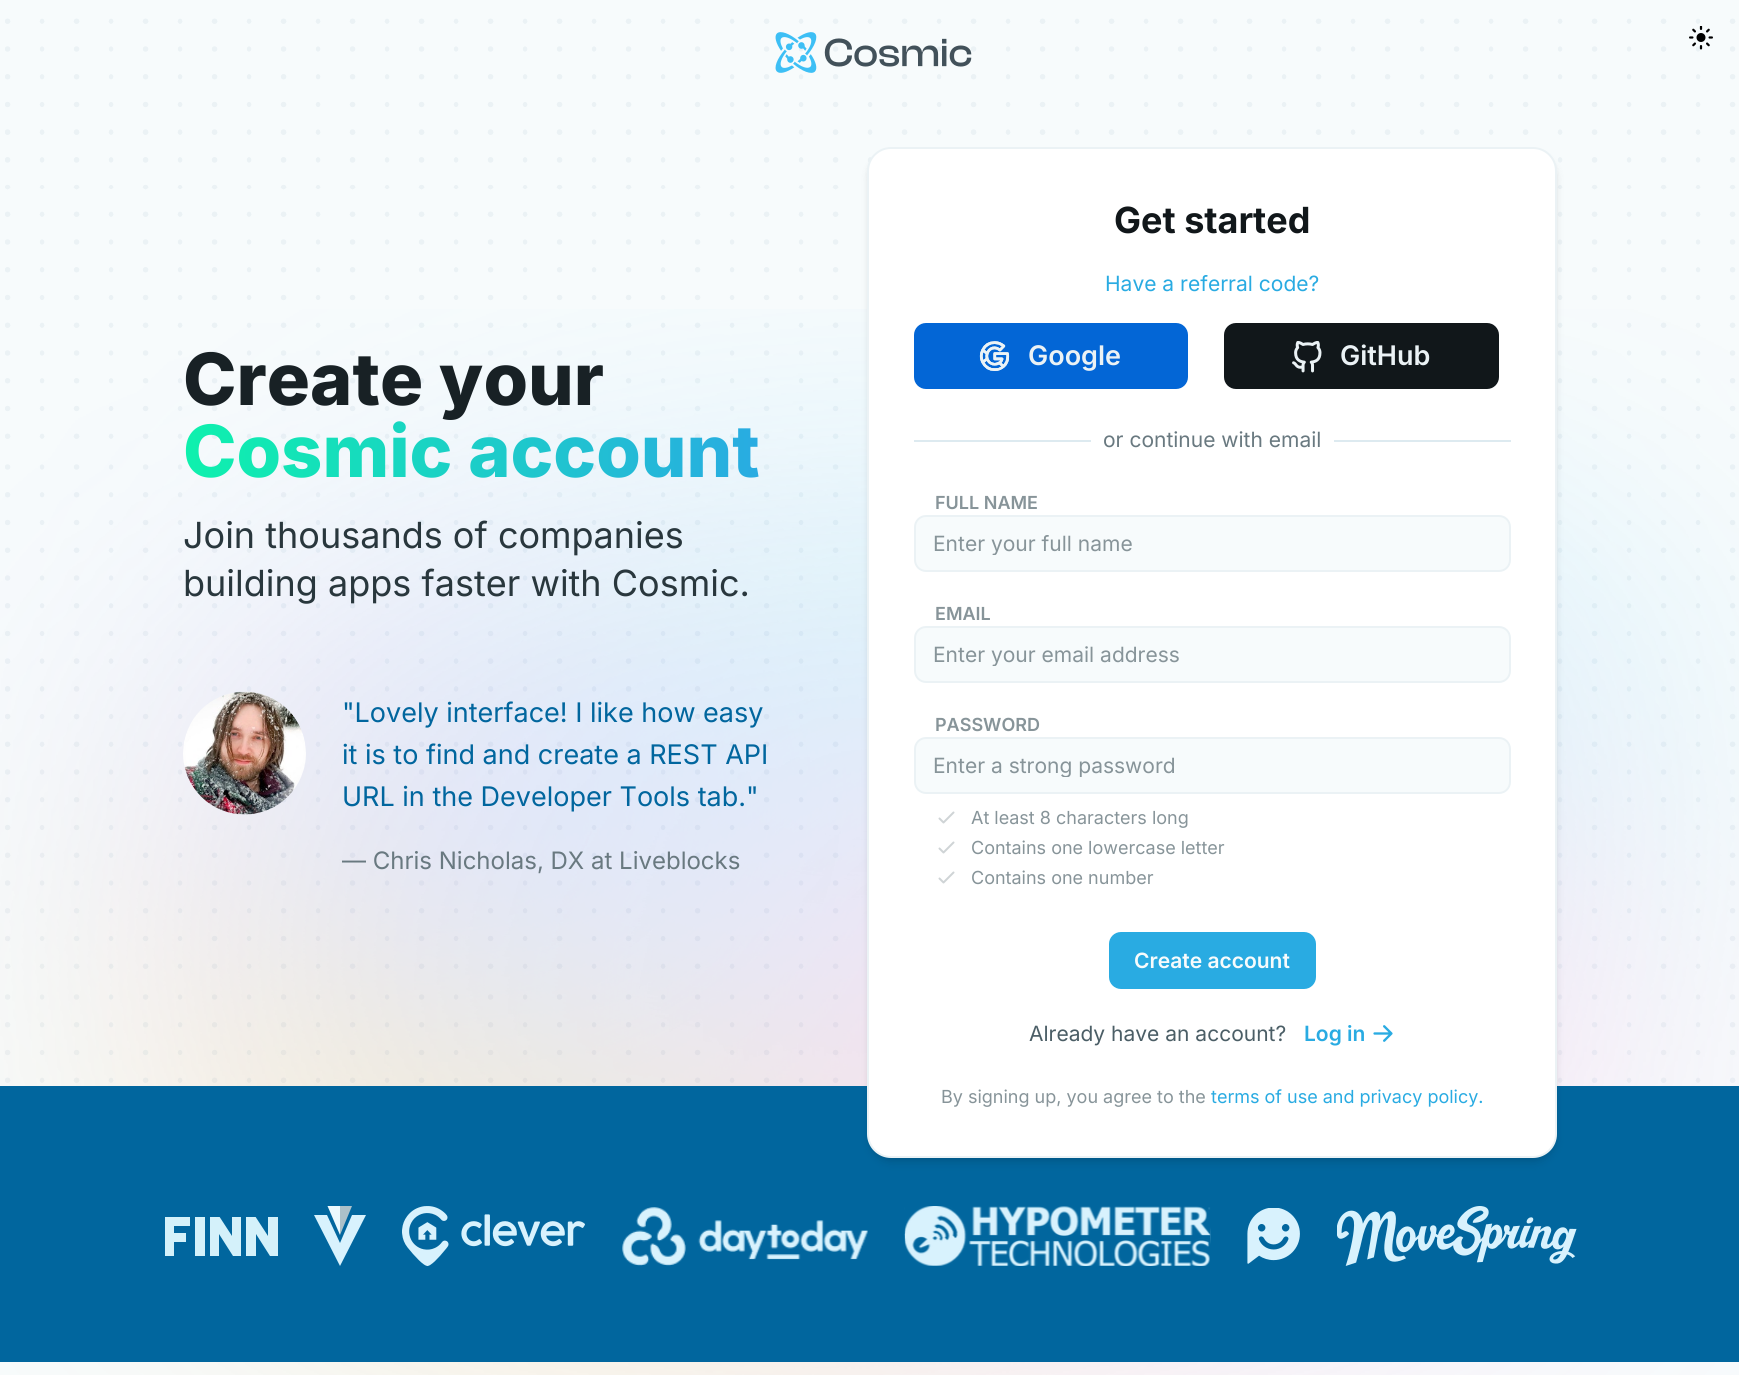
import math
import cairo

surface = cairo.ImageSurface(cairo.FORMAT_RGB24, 1739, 1375)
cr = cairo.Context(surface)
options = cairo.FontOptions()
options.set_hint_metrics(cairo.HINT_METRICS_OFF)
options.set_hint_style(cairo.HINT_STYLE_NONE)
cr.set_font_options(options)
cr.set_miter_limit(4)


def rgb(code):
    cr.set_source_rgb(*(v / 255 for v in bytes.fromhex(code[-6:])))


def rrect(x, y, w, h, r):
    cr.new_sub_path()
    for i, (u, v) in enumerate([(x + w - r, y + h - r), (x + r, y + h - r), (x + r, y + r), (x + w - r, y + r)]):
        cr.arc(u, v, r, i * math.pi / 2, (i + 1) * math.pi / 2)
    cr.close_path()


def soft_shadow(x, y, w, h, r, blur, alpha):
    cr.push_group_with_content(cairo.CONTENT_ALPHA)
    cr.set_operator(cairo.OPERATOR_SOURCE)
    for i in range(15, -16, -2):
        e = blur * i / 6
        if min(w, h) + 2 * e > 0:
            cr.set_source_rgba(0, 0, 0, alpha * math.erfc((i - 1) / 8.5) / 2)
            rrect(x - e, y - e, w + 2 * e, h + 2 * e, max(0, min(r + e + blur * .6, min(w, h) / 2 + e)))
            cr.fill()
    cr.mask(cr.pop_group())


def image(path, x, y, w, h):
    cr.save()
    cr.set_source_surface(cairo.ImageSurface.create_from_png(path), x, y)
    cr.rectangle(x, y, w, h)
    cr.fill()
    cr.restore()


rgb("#f7fbfc")
cr.paint()
image("img/1.png", 5, 18, 1731, 1065)
image("img/2.png", 0, 309, 1739, 1066)
image("img/3.png", 1689, 26, 24, 24)
image("img/4.png", 775, 32, 197, 41)
image("img/5.png", 183, 691, 123, 124)
rgb("#01669e")
cr.rectangle(0, 1086, 1739, 276)
cr.fill()
rgb("#000000")
soft_shadow(870, 153, 684, 1005, 21, 3, 0.1)
soft_shadow(869, 155, 687, 1008, 23, 4.5, 0.1)
rgb("#ffffff")
rrect(868, 148, 688, 1009, 23)
cr.fill_preserve()
rgb("#ebf2f5")
cr.stroke()
rgb("#0366d6")
rrect(914, 323, 274, 66, 12)
cr.fill()
image("img/6.png", 979, 341, 31, 30)
rgb("#11171a")
rrect(1224, 323, 275, 66, 12)
cr.fill()
image("img/7.png", 1292, 341, 30, 32)
rgb("#ddeaf0")
cr.rectangle(914, 440, 597, 2)
cr.fill()
rgb("#ffffff")
cr.rectangle(1091, 440, 243, 2)
cr.fill()
rgb("#f7fbfc")
rrect(915, 516, 595, 55, 11)
cr.fill_preserve()
rgb("#ebf2f5")
cr.stroke()
rgb("#f7fbfc")
rrect(915, 627, 595, 55, 11)
cr.fill_preserve()
rgb("#ebf2f5")
cr.stroke()
rgb("#f7fbfc")
rrect(915, 738, 595, 55, 11)
cr.fill_preserve()
rgb("#ebf2f5")
cr.stroke()
cr.new_path()
cr.move_to(939.5, 818.5)
cr.line_to(943.5, 822.5)
cr.line_to(953.5, 812.5)
cr.move_to(939.5, 848.5)
cr.line_to(943.5, 852.5)
cr.line_to(953.5, 842.5)
rgb("#cfd4d6")
cr.set_line_cap(cairo.LINE_CAP_ROUND)
cr.set_line_join(cairo.LINE_JOIN_ROUND)
cr.stroke()
cr.new_path()
cr.move_to(939.5, 878.5)
cr.line_to(943.5, 882.5)
cr.line_to(953.5, 872.5)
cr.stroke()
rgb("#29abe2")
rrect(1110, 933, 205, 55, 11)
cr.fill_preserve()
cr.set_line_cap(cairo.LINE_CAP_BUTT)
cr.set_line_join(cairo.LINE_JOIN_MITER)
cr.stroke()
image("img/8.png", 1373, 1025, 20, 17)
cr.save()
cr.rectangle(165, 1217, 113, 39)
cr.clip()
rgb("#d4f1fa")
cr.set_fill_rule(cairo.FILL_RULE_EVEN_ODD)
cr.new_path()
cr.move_to(165, 1256)
cr.line_to(165, 1216)
cr.line_to(190, 1216)
cr.line_to(190, 1226)
cr.line_to(174, 1226)
cr.line_to(174, 1233)
cr.line_to(186, 1233)
cr.line_to(186, 1242)
cr.line_to(174, 1242)
cr.line_to(174, 1256)
cr.close_path()
cr.move_to(205, 1216)
cr.line_to(195, 1216)
cr.line_to(195, 1256)
cr.line_to(205, 1256)
cr.close_path()
cr.move_to(232, 1236)
cr.line_to(232, 1216)
cr.line_to(241, 1216)
cr.line_to(241, 1256)
cr.line_to(233, 1256)
cr.line_to(219, 1234)
cr.line_to(219, 1256)
cr.line_to(210, 1256)
cr.line_to(210, 1216)
cr.line_to(219, 1216)
cr.close_path()
cr.move_to(268, 1236)
cr.line_to(268, 1216)
cr.line_to(278, 1216)
cr.line_to(278, 1256)
cr.line_to(270, 1256)
cr.line_to(256, 1234)
cr.line_to(256, 1256)
cr.line_to(246, 1256)
cr.line_to(246, 1216)
cr.line_to(255, 1216)
cr.close_path()
cr.fill()
cr.restore()
rgb("#ecf9fe")
cr.new_path()
cr.move_to(340, 1206)
cr.line_to(327.5, 1206)
cr.line_to(340, 1235)
cr.fill()
rgb("#acc1c9")
cr.new_path()
cr.move_to(340, 1206)
cr.line_to(352, 1206)
cr.line_to(340, 1235)
cr.fill()
rgb("#d8f2fd")
cr.new_path()
cr.move_to(340, 1243)
cr.line_to(340, 1266)
cr.line_to(314, 1215)
cr.line_to(327, 1215)
cr.move_to(340, 1243)
cr.line_to(340, 1266)
cr.line_to(366, 1215)
cr.line_to(352, 1215)
cr.fill()
image("img/9.png", 402, 1206, 183, 60)
image("img/10.png", 622, 1207, 246, 59)
image("img/11.png", 904, 1206, 307, 60)
image("img/12.png", 1247, 1208, 53, 56)
image("img/13.png", 1337, 1206, 240, 60)
cr.select_font_face("Inter ExtraBold")
cr.set_font_size(72)
rgb("#182125")
cr.move_to(183, 405)
cr.show_text("Create your")
gradient = cairo.LinearGradient(183, 451, 760, 451)
gradient.add_color_stop_rgba(0, 0.055, 0.945, 0.678, 1)
gradient.add_color_stop_rgba(1, 0.161, 0.671, 0.886, 1)
cr.set_source(gradient)
cr.move_to(183, 477)
cr.show_text("Cosmic account")
cr.select_font_face("Inter")
cr.set_font_size(36)
rgb("#29373d")
cr.move_to(183, 548)
cr.show_text("Join thousands of companies")
cr.move_to(183, 596)
cr.show_text("building apps faster with Cosmic.")
cr.set_font_size(27)
rgb("#01669e")
for x, y, s in [
    (342, 722, "\"Lovely interface! I like how easy"),
    (342, 764, "it is to find and create a REST API"),
    (342, 806, "URL in the Developer Tools tab.\""),
]:
    cr.move_to(x, y)
    cr.show_text(s)
cr.set_font_size(24)
rgb("#697980")
cr.move_to(342, 869)
cr.show_text("— Chris Nicholas, DX at Liveblocks")
cr.select_font_face("Inter", cairo.FONT_SLANT_NORMAL, cairo.FONT_WEIGHT_BOLD)
cr.set_font_size(36)
rgb("#11171a")
cr.move_to(1114, 233)
cr.show_text("Get started")
cr.select_font_face("Inter")
cr.set_font_size(21)
rgb("#29abe2")
cr.move_to(1105, 291)
cr.show_text("Have a referral code?")
cr.select_font_face("Inter SemiBold")
cr.set_font_size(27)
rgb("#ebf2f5")
cr.move_to(1028, 365)
cr.show_text("Google")
cr.move_to(1340, 365)
cr.show_text("GitHub")
cr.select_font_face("Inter")
cr.set_font_size(21)
rgb("#697980")
cr.move_to(1103, 447)
cr.show_text("or continue with email")
cr.select_font_face("Inter SemiBold")
cr.set_font_size(18)
rgb("#879499")
cr.move_to(935, 509)
cr.show_text("FULL NAME")
cr.save()
cr.rectangle(933, 530, 558, 25)
cr.clip()
cr.select_font_face("Inter")
cr.set_font_size(21)
cr.move_to(933, 551)
cr.show_text("Enter your full name")
cr.restore()
cr.move_to(935, 620)
cr.show_text("EMAIL")
cr.save()
cr.rectangle(933, 641, 558, 25)
cr.clip()
cr.select_font_face("Inter")
cr.set_font_size(21)
cr.move_to(933, 662)
cr.show_text("Enter your email address")
cr.restore()
cr.move_to(935, 731)
cr.show_text("PASSWORD")
cr.save()
cr.rectangle(933, 752, 558, 25)
cr.clip()
cr.select_font_face("Inter")
cr.set_font_size(21)
cr.move_to(933, 773)
cr.show_text("Enter a strong password")
cr.restore()
cr.select_font_face("Inter")
for x, y, s in [
    (971, 824, "At least 8 characters long"),
    (971, 854, "Contains one lowercase letter"),
    (971, 884, "Contains one number"),
]:
    cr.move_to(x, y)
    cr.show_text(s)
cr.select_font_face("Inter SemiBold")
cr.set_font_size(21)
rgb("#f7fbfc")
cr.move_to(1134, 968)
cr.show_text("Create account")
cr.select_font_face("Inter")
rgb("#4b5e66")
cr.move_to(1029, 1041)
cr.show_text("Already have an account?")
cr.select_font_face("Inter SemiBold")
rgb("#29abe2")
cr.move_to(1304, 1041)
cr.show_text("Log in")
cr.select_font_face("Inter")
cr.set_font_size(18)
rgb("#879499")
cr.move_to(941, 1103)
cr.show_text("By signing up, you agree to the")
rgb("#29abe2")
cr.move_to(1211, 1103)
cr.show_text("terms of use and privacy policy.")
surface.write_to_png("page.png")
